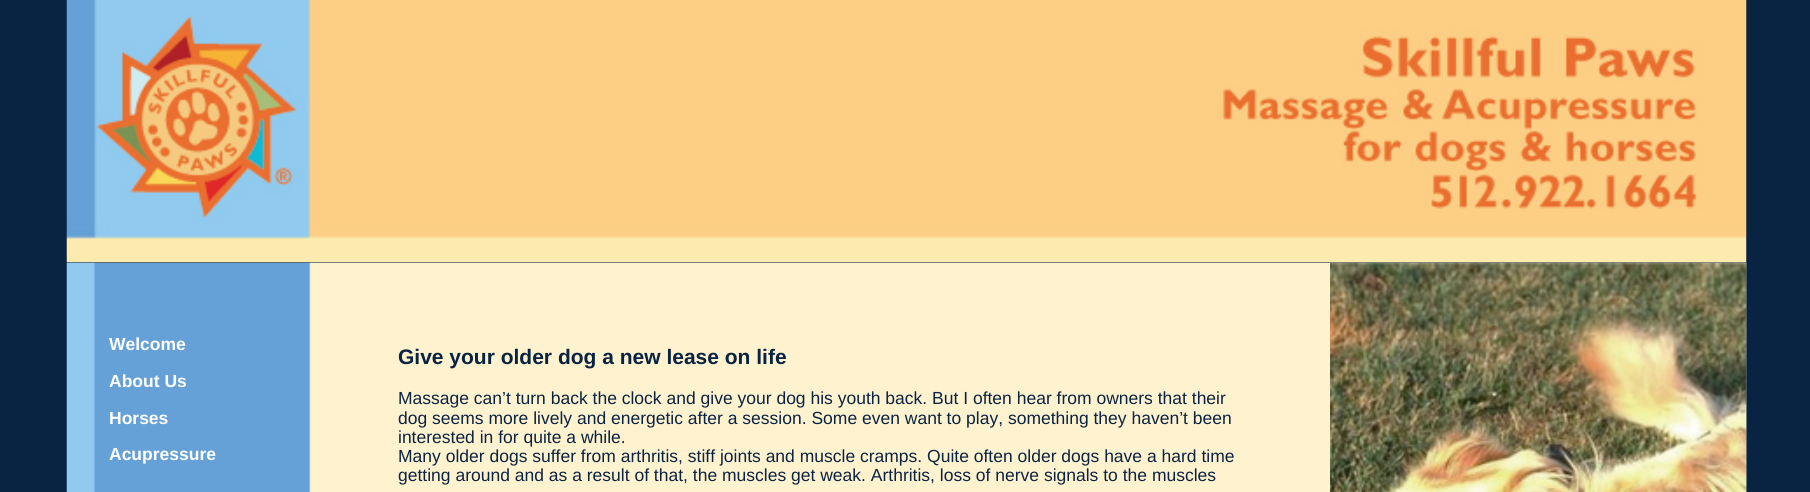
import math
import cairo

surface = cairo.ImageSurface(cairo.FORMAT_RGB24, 1810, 492)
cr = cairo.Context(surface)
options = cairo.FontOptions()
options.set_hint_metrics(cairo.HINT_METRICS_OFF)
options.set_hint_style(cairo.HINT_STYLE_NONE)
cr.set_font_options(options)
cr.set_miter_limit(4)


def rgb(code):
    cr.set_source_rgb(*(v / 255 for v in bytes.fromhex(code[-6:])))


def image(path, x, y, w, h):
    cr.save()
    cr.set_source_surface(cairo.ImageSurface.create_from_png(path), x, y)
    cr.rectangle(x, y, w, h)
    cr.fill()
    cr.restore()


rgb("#092342")
cr.paint()
image("img/2.png", 66, 262, 1681, 230)
image("img/3.png", 1330, 262, 417, 230)
image("img/1.png", 66, 0, 1681, 263)
cr.select_font_face("Liberation Sans", cairo.FONT_SLANT_NORMAL, cairo.FONT_WEIGHT_BOLD)
cr.set_font_size(17.5)
rgb("#ffffff")
for x, y, s in [
    (109, 350, "Welcome"),
    (109, 387, "About Us"),
    (109, 424, "Horses"),
    (109, 460, "Acupressure"),
]:
    cr.move_to(x, y)
    cr.show_text(s)
cr.set_font_size(21)
rgb("#092342")
cr.move_to(398, 364)
cr.show_text("Give your older dog a new lease on life")
cr.select_font_face("Liberation Sans")
cr.set_font_size(17.5)
for x, y, s in [
    (398, 404, "Massage can’t turn back the clock and give your dog his youth back. But I often hear from owners that their"),
    (398, 424, "dog seems more lively and energetic after a session. Some even want to play, something they haven’t been"),
    (398, 443, "interested in for quite a while."),
    (398, 462, "Many older dogs suffer from arthritis, stiff joints and muscle cramps. Quite often older dogs have a hard time"),
    (398, 481, "getting around and as a result of that, the muscles get weak. Arthritis, loss of nerve signals to the muscles"),
]:
    cr.move_to(x, y)
    cr.show_text(s)
surface.write_to_png("page.png")
